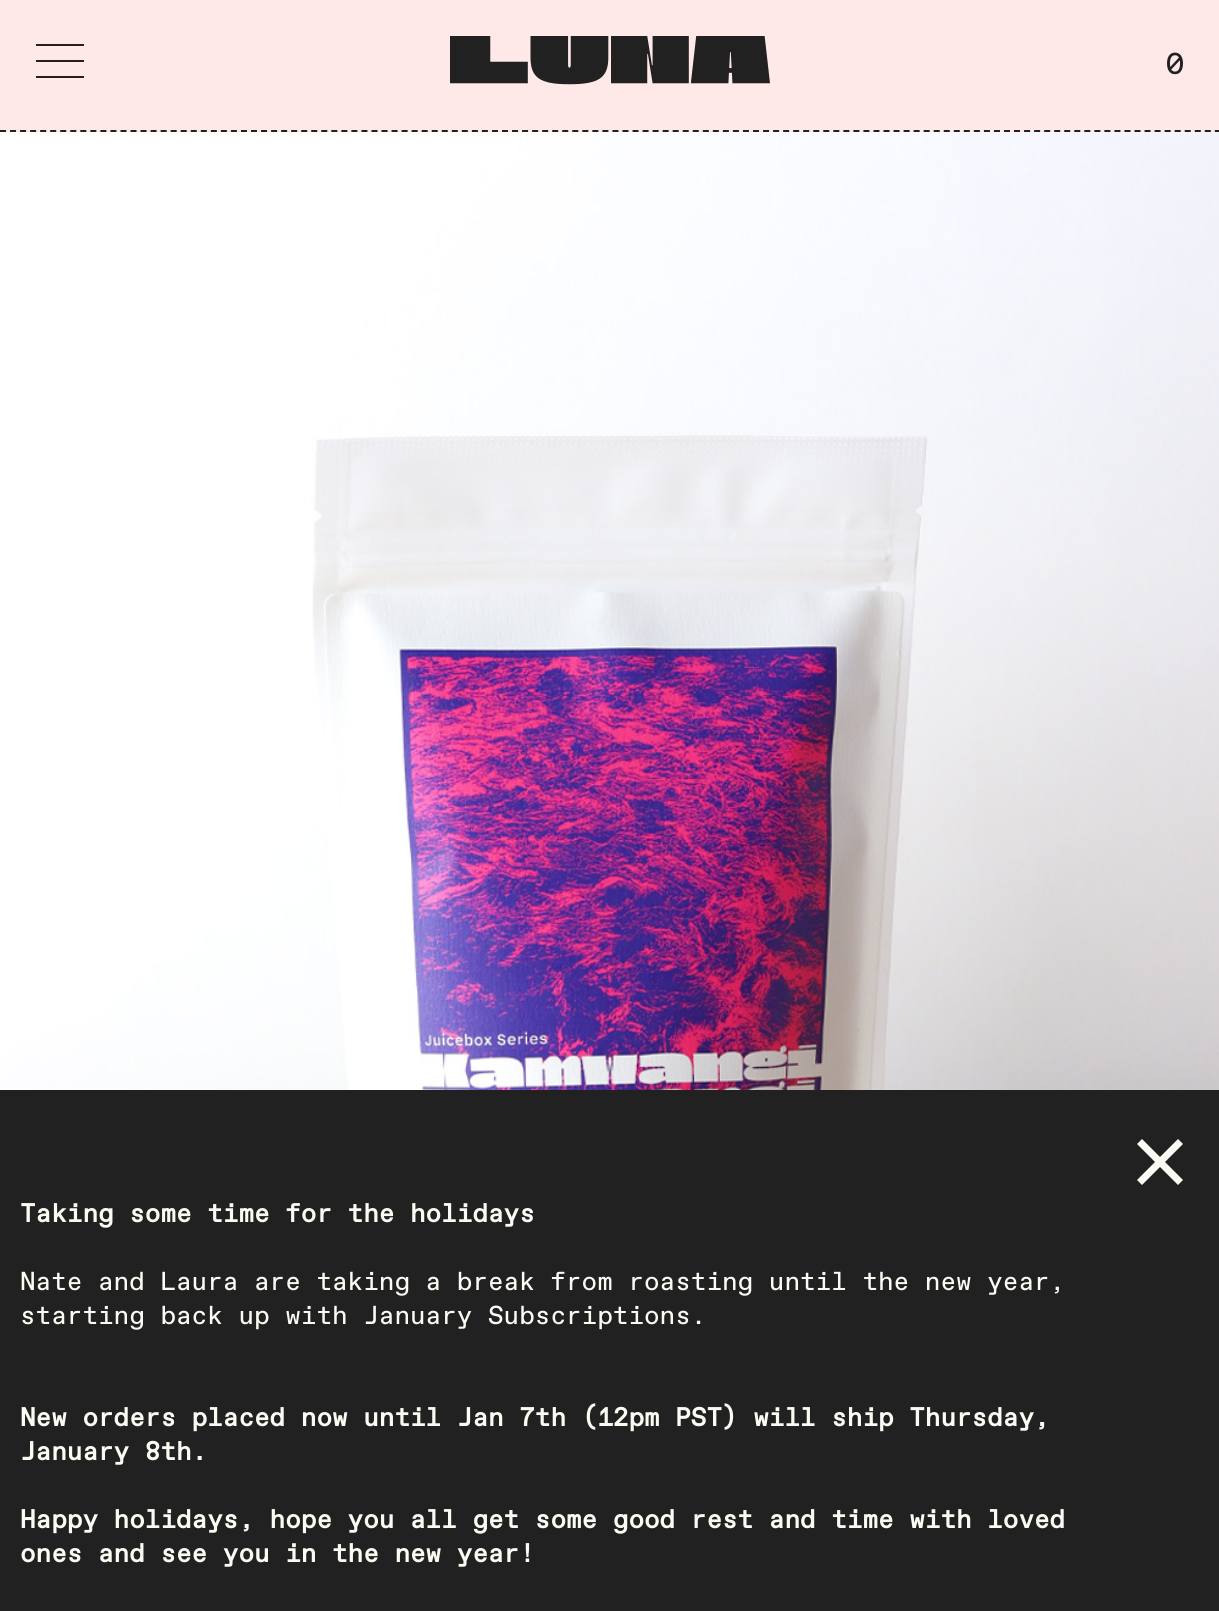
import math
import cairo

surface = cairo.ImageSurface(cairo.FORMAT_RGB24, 1219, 1611)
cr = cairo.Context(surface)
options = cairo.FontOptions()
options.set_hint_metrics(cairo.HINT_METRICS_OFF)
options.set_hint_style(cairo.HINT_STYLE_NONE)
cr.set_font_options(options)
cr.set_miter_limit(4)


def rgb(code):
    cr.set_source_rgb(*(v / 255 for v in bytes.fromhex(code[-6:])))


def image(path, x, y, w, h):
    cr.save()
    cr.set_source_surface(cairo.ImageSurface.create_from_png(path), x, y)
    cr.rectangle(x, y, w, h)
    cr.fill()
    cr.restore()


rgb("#ffffff")
cr.paint()
rgb("#ffe8e8")
cr.rectangle(0, 0, 1219, 132)
cr.fill()
cr.new_path()
cr.move_to(0, 131)
cr.line_to(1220, 131)
rgb("#212121")
cr.set_dash([6, 4.04])
cr.stroke()
cr.set_fill_rule(cairo.FILL_RULE_EVEN_ODD)
cr.new_path()
cr.move_to(84, 76)
cr.line_to(84, 78)
cr.line_to(36, 78)
cr.line_to(36, 76)
cr.close_path()
cr.move_to(84, 60)
cr.line_to(84, 62)
cr.line_to(36, 62)
cr.line_to(36, 60)
cr.close_path()
cr.move_to(84, 44)
cr.line_to(84, 46)
cr.line_to(36, 46)
cr.line_to(36, 44)
cr.close_path()
cr.fill()
image("img/1.png", 450, 36, 320, 49)
image("img/2.png", 0, 132, 1219, 958)
cr.rectangle(0, 1090, 1219, 521)
cr.fill()
rgb("#fbfaf3")
cr.new_path()
cr.move_to(1183, 1144)
cr.line_to(1165, 1162)
cr.line_to(1183, 1180)
cr.line_to(1178, 1185)
cr.line_to(1160, 1167)
cr.line_to(1142, 1185)
cr.line_to(1137, 1180)
cr.line_to(1155, 1162)
cr.line_to(1137, 1144)
cr.line_to(1142, 1139)
cr.line_to(1160, 1157)
cr.line_to(1178, 1139)
cr.close_path()
cr.fill()
cr.select_font_face("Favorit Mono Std")
cr.set_font_size(30)
rgb("#212121")
cr.move_to(1166, 74)
cr.show_text("0")
cr.select_font_face("Favorit Mono Std", cairo.FONT_SLANT_NORMAL, cairo.FONT_WEIGHT_BOLD)
cr.set_font_size(26)
rgb("#fbfaf3")
cr.move_to(20, 1222)
cr.show_text("Taking some time for the holidays")
cr.select_font_face("Favorit Mono Std")
cr.move_to(20, 1290)
cr.show_text("Nate and Laura are taking a break from roasting until the new year,")
cr.move_to(20, 1324)
cr.show_text("starting back up with January Subscriptions.")
cr.select_font_face("Favorit Mono Std", cairo.FONT_SLANT_NORMAL, cairo.FONT_WEIGHT_BOLD)
for x, y, s in [
    (20, 1426, "New orders placed now until Jan 7th (12pm PST) will ship Thursday,"),
    (20, 1460, "January 8th."),
    (20, 1528, "Happy holidays, hope you all get some good rest and time with loved"),
    (20, 1562, "ones and see you in the new year!"),
]:
    cr.move_to(x, y)
    cr.show_text(s)
surface.write_to_png("page.png")
